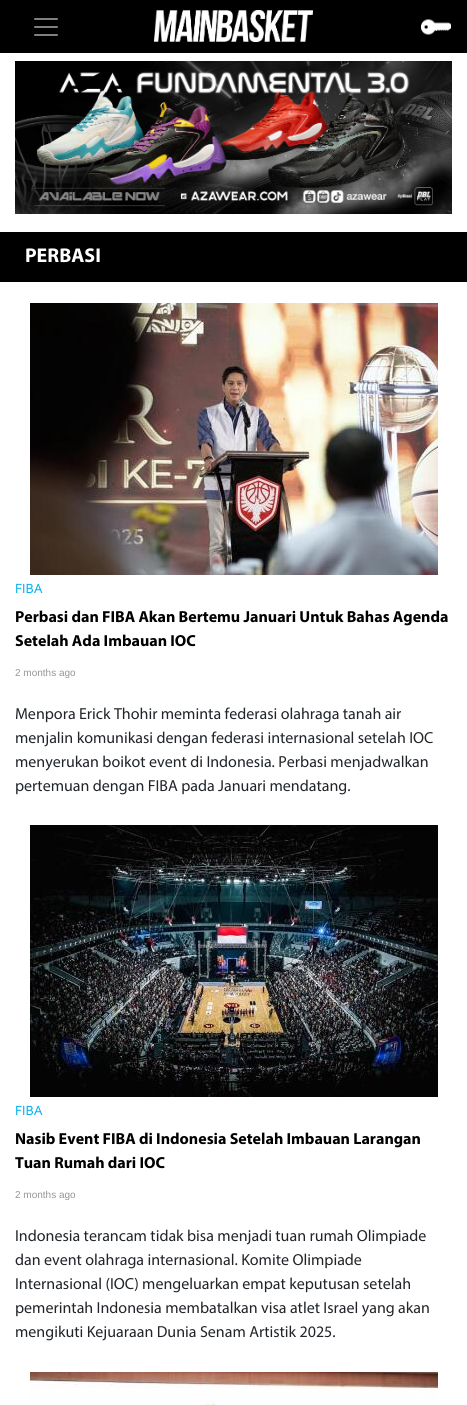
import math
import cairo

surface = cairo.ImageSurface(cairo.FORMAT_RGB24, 467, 1405)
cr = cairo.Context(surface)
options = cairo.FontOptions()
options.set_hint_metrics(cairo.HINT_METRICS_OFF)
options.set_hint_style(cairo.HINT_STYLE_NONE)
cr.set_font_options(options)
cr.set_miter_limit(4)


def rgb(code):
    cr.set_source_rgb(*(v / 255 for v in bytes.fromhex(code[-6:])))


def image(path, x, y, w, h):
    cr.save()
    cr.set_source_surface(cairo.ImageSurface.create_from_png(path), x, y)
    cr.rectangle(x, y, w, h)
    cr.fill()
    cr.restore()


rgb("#ffffff")
cr.paint()
rgb("#000000")
cr.rectangle(0, 0, 467, 53)
cr.fill()
image("img/1.png", 34, 18, 24, 18)
image("img/2.png", 154, 10, 159, 32)
image("img/3.png", 421, 19, 30, 16)
image("img/4.png", 15, 61, 437, 153)
cr.rectangle(0, 232, 467, 50)
cr.fill()
image("img/5.png", 30, 303, 408, 272)
image("img/6.png", 30, 825, 408, 272)
image("img/7.png", 30, 1372, 408, 33)
cr.select_font_face("Myriad", cairo.FONT_SLANT_NORMAL, cairo.FONT_WEIGHT_BOLD)
cr.set_font_size(20)
rgb("#ffffff")
cr.move_to(25, 262)
cr.show_text("PERBASI")
cr.select_font_face("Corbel")
cr.set_font_size(14)
rgb("#00aeef")
cr.move_to(15, 593)
cr.show_text("FIBA")
cr.select_font_face("Myriad", cairo.FONT_SLANT_NORMAL, cairo.FONT_WEIGHT_BOLD)
cr.set_font_size(16)
rgb("#000000")
cr.move_to(15, 622)
cr.show_text("Perbasi dan FIBA Akan Bertemu Januari Untuk Bahas Agenda")
cr.move_to(15, 646)
cr.show_text("Setelah Ada Imbauan IOC")
cr.select_font_face("Liberation Sans")
cr.set_font_size(10)
rgb("#939598")
cr.move_to(15, 676)
cr.show_text("2 months ago")
cr.select_font_face("Myriad")
cr.set_font_size(16)
rgb("#212529")
for x, y, s in [
    (15, 719, "Menpora Erick Thohir meminta federasi olahraga tanah air"),
    (15, 743, "menjalin komunikasi dengan federasi internasional setelah IOC"),
    (15, 767, "menyerukan boikot event di Indonesia. Perbasi menjadwalkan"),
    (15, 791, "pertemuan dengan FIBA pada Januari mendatang."),
]:
    cr.move_to(x, y)
    cr.show_text(s)
cr.select_font_face("Corbel")
cr.set_font_size(14)
rgb("#00aeef")
cr.move_to(15, 1115)
cr.show_text("FIBA")
cr.select_font_face("Myriad", cairo.FONT_SLANT_NORMAL, cairo.FONT_WEIGHT_BOLD)
cr.set_font_size(16)
rgb("#000000")
cr.move_to(15, 1144)
cr.show_text("Nasib Event FIBA di Indonesia Setelah Imbauan Larangan")
cr.move_to(15, 1168)
cr.show_text("Tuan Rumah dari IOC")
cr.select_font_face("Liberation Sans")
cr.set_font_size(10)
rgb("#939598")
cr.move_to(15, 1198)
cr.show_text("2 months ago")
cr.select_font_face("Myriad")
cr.set_font_size(16)
rgb("#212529")
for x, y, s in [
    (15, 1241, "Indonesia terancam tidak bisa menjadi tuan rumah Olimpiade"),
    (15, 1265, "dan event olahraga internasional. Komite Olimpiade"),
    (15, 1289, "Internasional (IOC) mengeluarkan empat keputusan setelah"),
    (15, 1313, "pemerintah Indonesia membatalkan visa atlet Israel yang akan"),
    (15, 1337, "mengikuti Kejuaraan Dunia Senam Artistik 2025."),
]:
    cr.move_to(x, y)
    cr.show_text(s)
surface.write_to_png("page.png")
